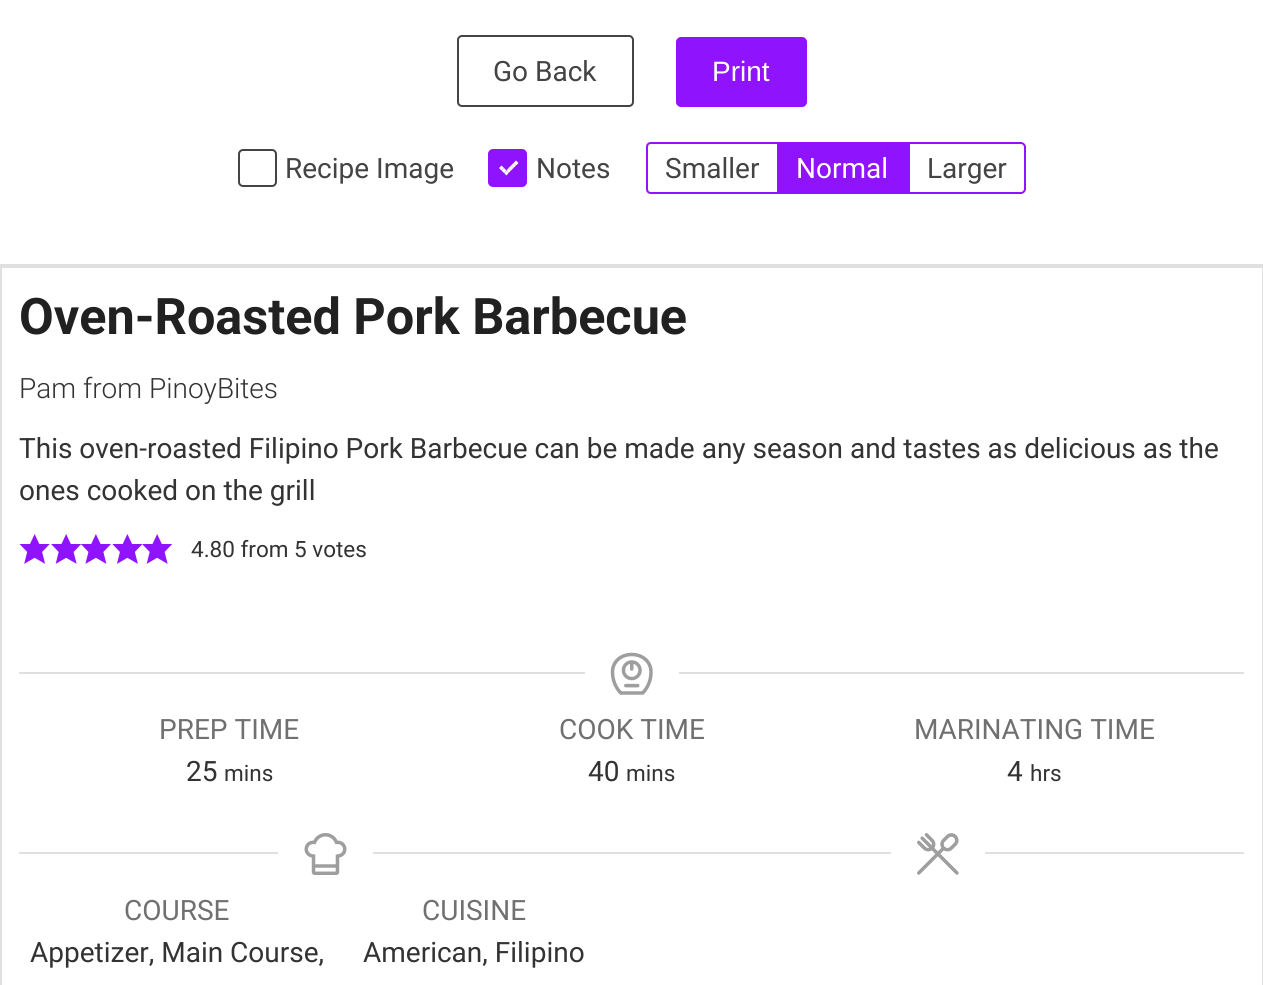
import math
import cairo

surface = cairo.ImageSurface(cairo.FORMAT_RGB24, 1263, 985)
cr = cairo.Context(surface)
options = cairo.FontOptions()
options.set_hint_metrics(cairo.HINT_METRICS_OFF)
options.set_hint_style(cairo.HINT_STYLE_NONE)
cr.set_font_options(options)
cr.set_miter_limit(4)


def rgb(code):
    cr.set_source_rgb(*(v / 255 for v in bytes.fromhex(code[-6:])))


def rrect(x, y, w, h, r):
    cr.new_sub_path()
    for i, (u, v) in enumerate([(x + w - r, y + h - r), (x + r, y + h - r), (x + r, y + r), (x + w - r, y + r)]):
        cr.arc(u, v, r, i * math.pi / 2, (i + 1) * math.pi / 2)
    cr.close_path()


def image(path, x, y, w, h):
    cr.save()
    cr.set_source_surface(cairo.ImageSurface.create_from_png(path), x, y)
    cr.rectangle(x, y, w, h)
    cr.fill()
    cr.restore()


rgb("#ffffff")
cr.paint()
rrect(458, 36, 175, 70, 4)
rgb("#444444")
cr.stroke()
rgb("#9013fe")
rrect(677, 38, 129, 68, 4)
cr.fill_preserve()
cr.stroke()
rrect(239, 150, 37, 36, 4)
rgb("#444444")
cr.stroke()
rgb("#9013fe")
rrect(489, 150, 37, 36, 4)
cr.fill_preserve()
cr.stroke()
rgb("#ffffff")
cr.new_path()
cr.move_to(516, 160.5)
cr.line_to(518.5, 163)
cr.line_to(516, 165.5)
cr.line_to(513.5, 163)
cr.close_path()
cr.fill()
cr.new_path()
cr.move_to(513.5, 163)
cr.line_to(516, 165.5)
cr.line_to(513.5, 168)
cr.line_to(511, 165.5)
cr.close_path()
cr.fill()
cr.new_path()
cr.move_to(511, 165.5)
cr.line_to(513.5, 168)
cr.line_to(511, 170.5)
cr.line_to(508.5, 168)
cr.close_path()
cr.fill()
cr.new_path()
cr.move_to(508.5, 168)
cr.line_to(511, 170.5)
cr.line_to(508.5, 173)
cr.line_to(506.5, 170.5)
cr.close_path()
cr.fill()
cr.new_path()
cr.move_to(506.5, 170.5)
cr.line_to(508.5, 173)
cr.line_to(506.5, 175.5)
cr.line_to(504, 173)
cr.close_path()
cr.fill()
cr.new_path()
cr.move_to(504, 168)
cr.line_to(506.5, 170.5)
cr.line_to(504, 173)
cr.line_to(501.5, 170.5)
cr.close_path()
cr.fill()
cr.new_path()
cr.move_to(501.5, 165.5)
cr.line_to(504, 168)
cr.line_to(501.5, 170.5)
cr.line_to(499, 168)
cr.close_path()
cr.fill()
rgb("#9013fe")
cr.set_fill_rule(cairo.FILL_RULE_EVEN_ODD)
cr.new_path()
cr.move_to(651, 142)
cr.line_to(777, 142)
cr.line_to(777, 194)
cr.line_to(651, 194)
cr.curve_to(648, 194, 646, 192, 646, 189)
cr.line_to(646, 147)
cr.curve_to(646, 144, 648, 142, 651, 142)
cr.close_path()
cr.move_to(651, 144)
cr.line_to(777, 144)
cr.line_to(777, 192)
cr.line_to(651, 192)
cr.curve_to(649, 192, 648, 191, 648, 189)
cr.line_to(648, 147)
cr.curve_to(648, 145, 649, 144, 651, 144)
cr.close_path()
cr.fill()
cr.rectangle(777, 142, 131, 52)
cr.fill()
cr.new_path()
cr.move_to(909, 143)
cr.line_to(1021, 143)
cr.curve_to(1023, 143, 1025, 145, 1025, 147)
cr.line_to(1025, 189)
cr.curve_to(1025, 191, 1023, 193, 1021, 193)
cr.line_to(909, 193)
cr.close_path()
cr.stroke()
for x, y, w, h, color in [
    (0, 264, 1263, 4, "#e0e0e0"),
    (1262, 264, 1, 721, "#e0e0e0"),
    (0, 264, 2, 721, "#e0e0e0"),
]:
    rgb(color)
    cr.rectangle(x, y, w, h)
    cr.fill()
image("img/1.png", 19, 534, 31, 30)
image("img/2.png", 51, 534, 30, 30)
image("img/3.png", 81, 534, 30, 30)
image("img/4.png", 112, 534, 30, 30)
image("img/5.png", 142, 534, 31, 30)
cr.rectangle(19, 672, 566, 2)
cr.fill()
image("img/6.png", 610, 652, 43, 43)
cr.rectangle(679, 672, 565, 2)
cr.fill()
image("img/7.png", 917, 833, 42, 42)
cr.rectangle(985, 852, 259, 2)
cr.fill()
cr.rectangle(19, 852, 259, 2)
cr.fill()
image("img/8.png", 304, 833, 43, 42)
cr.rectangle(373, 852, 518, 2)
cr.fill()
cr.select_font_face("Roboto")
cr.set_font_size(28)
rgb("#444444")
cr.move_to(493, 81)
cr.show_text("Go Back")
cr.select_font_face("Liberation Sans")
rgb("#ffffff")
cr.move_to(712, 81)
cr.show_text("Print")
cr.select_font_face("Roboto")
rgb("#444444")
for x, y, s in [
    (285, 178, "Recipe Image"),
    (536, 178, "Notes"),
    (665, 178, "Smaller"),
]:
    cr.move_to(x, y)
    cr.show_text(s)
rgb("#ffffff")
cr.move_to(796, 178)
cr.show_text("Normal")
rgb("#444444")
cr.move_to(927, 178)
cr.show_text("Larger")
cr.select_font_face("Roboto", cairo.FONT_SLANT_NORMAL, cairo.FONT_WEIGHT_BOLD)
cr.set_font_size(50.4)
rgb("#212121")
cr.move_to(19, 334)
cr.show_text("Oven-Roasted Pork Barbecue")
cr.select_font_face("Roboto Light")
cr.set_font_size(28)
rgb("#333333")
cr.move_to(19, 398)
cr.show_text("Pam from PinoyBites")
cr.select_font_face("Roboto")
cr.move_to(19, 458)
cr.show_text("This oven-roasted Filipino Pork Barbecue can be made any season and tastes as delicious as the")
cr.move_to(19, 500)
cr.show_text("ones cooked on the grill")
cr.set_font_size(22.5)
cr.move_to(191, 557)
cr.show_text("4.80 from 5 votes")
cr.set_font_size(28)
rgb("#707070")
cr.move_to(159, 739)
cr.show_text("PREP TIME")
rgb("#333333")
cr.move_to(186, 781)
cr.show_text("25")
cr.set_font_size(22.5)
cr.move_to(224, 781)
cr.show_text("mins")
cr.set_font_size(28)
rgb("#707070")
cr.move_to(559, 739)
cr.show_text("COOK TIME")
rgb("#333333")
cr.move_to(588, 781)
cr.show_text("40")
cr.set_font_size(22.5)
cr.move_to(626, 781)
cr.show_text("mins")
cr.set_font_size(28)
rgb("#707070")
cr.move_to(914, 739)
cr.show_text("MARINATING TIME")
rgb("#333333")
cr.move_to(1007, 781)
cr.show_text("4")
cr.set_font_size(22.5)
cr.move_to(1030, 781)
cr.show_text("hrs")
cr.set_font_size(28)
rgb("#707070")
cr.move_to(124, 920)
cr.show_text("COURSE")
rgb("#333333")
cr.move_to(30, 962)
cr.show_text("Appetizer, Main Course,")
rgb("#707070")
cr.move_to(422, 920)
cr.show_text("CUISINE")
rgb("#333333")
cr.move_to(363, 962)
cr.show_text("American, Filipino")
surface.write_to_png("page.png")
